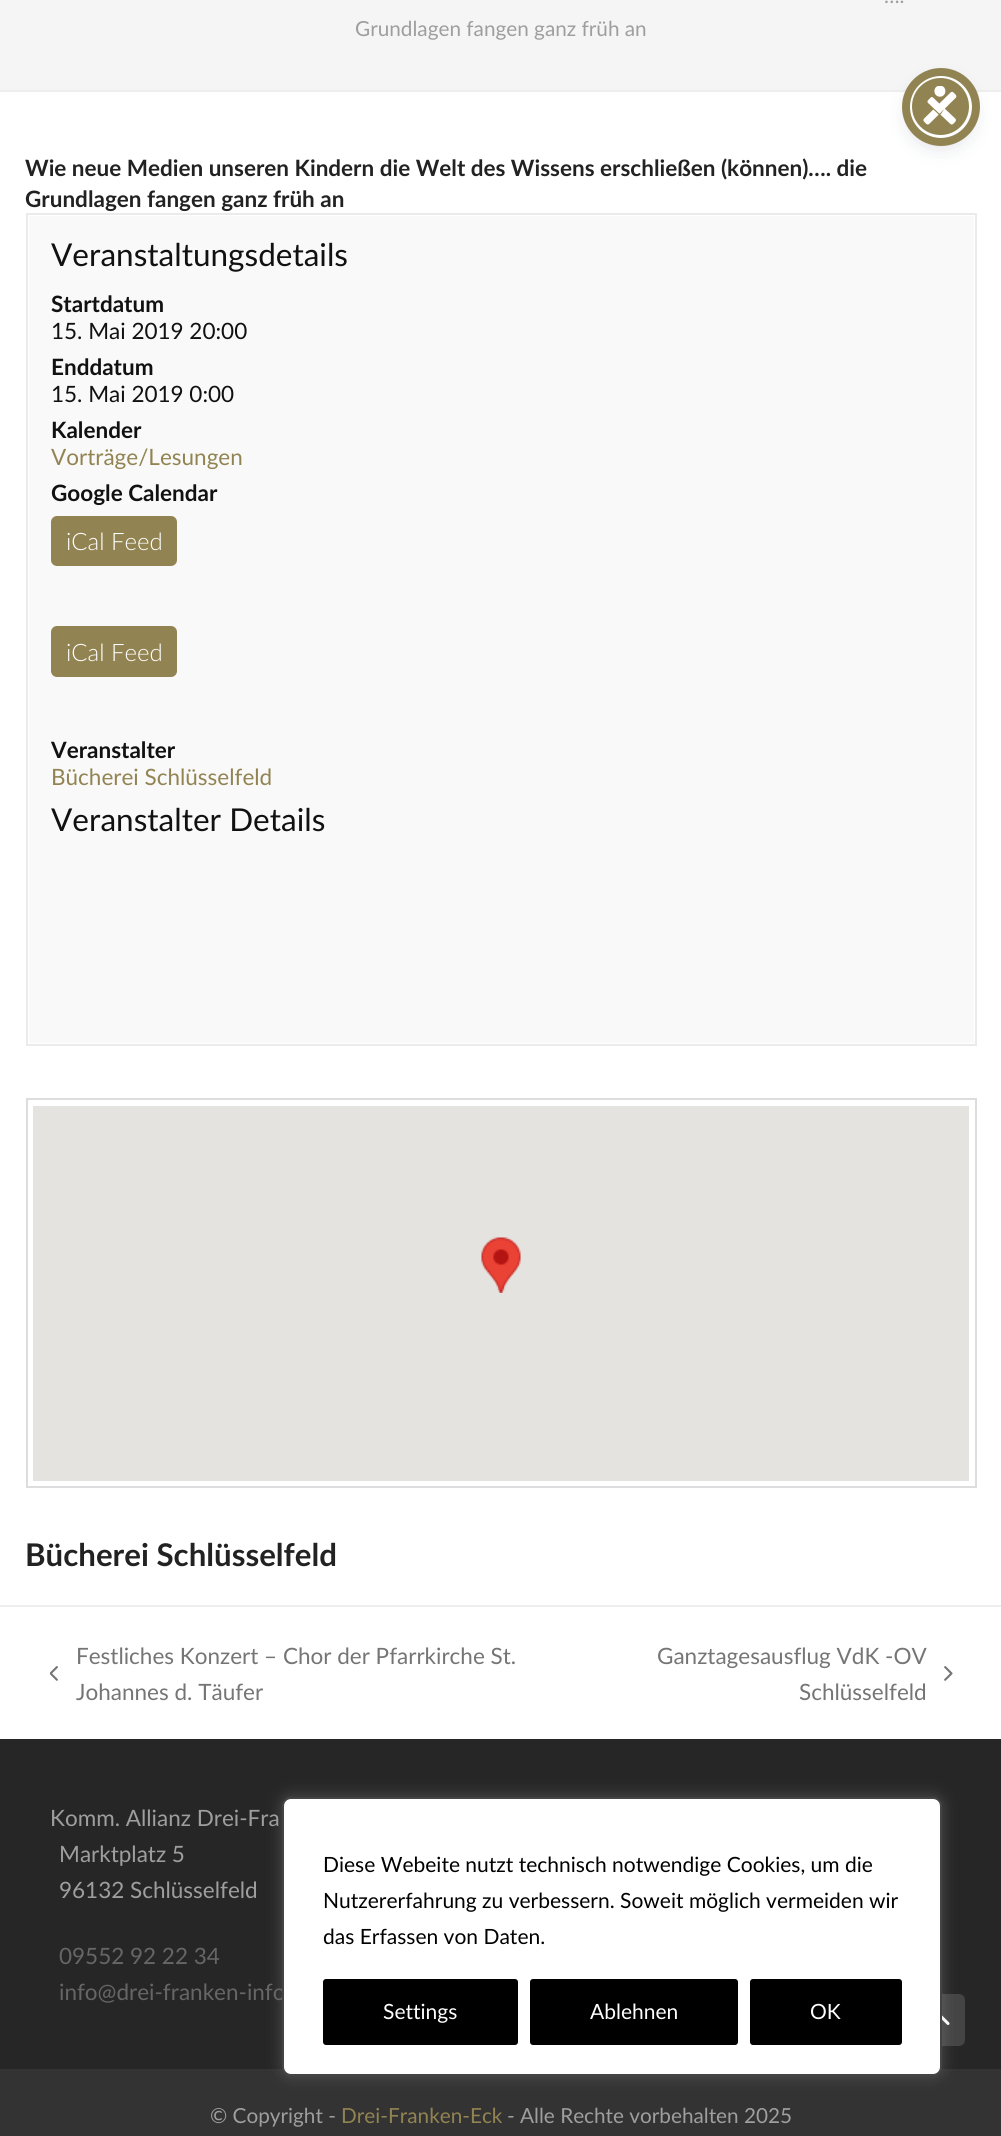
import math
import cairo

surface = cairo.ImageSurface(cairo.FORMAT_RGB24, 1001, 2136)
cr = cairo.Context(surface)
options = cairo.FontOptions()
options.set_hint_metrics(cairo.HINT_METRICS_OFF)
options.set_hint_style(cairo.HINT_STYLE_NONE)
cr.set_font_options(options)
cr.set_miter_limit(4)


def rgb(code):
    cr.set_source_rgb(*(v / 255 for v in bytes.fromhex(code[-6:])))


def rrect(x, y, w, h, r):
    cr.new_sub_path()
    for i, (u, v) in enumerate([(x + w - r, y + h - r), (x + r, y + h - r), (x + r, y + r), (x + w - r, y + r)]):
        cr.arc(u, v, r, i * math.pi / 2, (i + 1) * math.pi / 2)
    cr.close_path()


def soft_shadow(x, y, w, h, r, blur, alpha):
    cr.push_group_with_content(cairo.CONTENT_ALPHA)
    cr.set_operator(cairo.OPERATOR_SOURCE)
    for i in range(15, -16, -2):
        e = blur * i / 6
        if min(w, h) + 2 * e > 0:
            cr.set_source_rgba(0, 0, 0, alpha * math.erfc((i - 1) / 8.5) / 2)
            rrect(x - e, y - e, w + 2 * e, h + 2 * e, max(0, min(r + e + blur * .6, min(w, h) / 2 + e)))
            cr.fill()
    cr.mask(cr.pop_group())


def image(path, x, y, w, h):
    cr.save()
    cr.set_source_surface(cairo.ImageSurface.create_from_png(path), x, y)
    cr.rectangle(x, y, w, h)
    cr.fill()
    cr.restore()


rgb("#ffffff")
cr.paint()
rgb("#f5f5f5")
cr.rectangle(0, 0, 1001, 90)
cr.fill()
rgb("#eeeeee")
cr.rectangle(0, 90, 1001, 2)
cr.fill()
cr.rectangle(27, 214, 949, 831)
rgb("#ebebeb")
cr.stroke()
rgb("#f9f9f9")
cr.rectangle(29, 216, 945, 827)
cr.fill()
rgb("#928452")
rrect(51, 516, 126, 50, 6)
cr.fill()
rrect(51, 626, 126, 51, 6)
cr.fill()
cr.rectangle(27, 1099, 949, 388)
rgb("#dddddd")
cr.stroke()
rgb("#e5e3df")
cr.rectangle(33, 1106, 936, 375)
cr.fill()
image("img/1.png", 481, 1237, 40, 56)
rgb("#eeeeee")
cr.rectangle(0, 1605, 1001, 2)
cr.fill()
image("img/2.png", 50, 1666, 8, 15)
image("img/3.png", 944, 1666, 9, 15)
rgb("#262626")
cr.rectangle(0, 1739, 1001, 330)
cr.fill()
rgb("#333333")
cr.rectangle(0, 2069, 1001, 67)
cr.fill()
rgb("#5d6494")
soft_shadow(909, 78, 63, 63, 31.5, 3, 0.2)
rgb("#252c61")
soft_shadow(909, 83, 63, 63, 31.5, 11, 0.15)
rgb("#928452")
cr.arc(940.5, 106.5, 30, 0, 2 * math.pi)
cr.fill_preserve()
rgb("#ffffff")
cr.set_line_width(3)
cr.stroke()
cr.arc(941, 107, 35, 0, 2 * math.pi)
rgb("#928452")
cr.set_line_width(8)
cr.stroke()
image("img/4.png", 923, 86, 34, 39)
rgb("#444444")
rrect(912, 1994, 53, 52, 6)
cr.fill()
image("img/5.png", 942, 2015, 8, 10)
rgb("#acabab")
soft_shadow(282, 1796, 660, 279, 9, 7.5, 0.3)
cr.select_font_face("Lato")
cr.set_font_size(20.75)
rgb("#9e9e9e")
cr.move_to(884, 3)
cr.show_text("….")
cr.move_to(355, 36)
cr.show_text("Grundlagen fangen ganz früh an")
cr.select_font_face("Lato", cairo.FONT_SLANT_NORMAL, cairo.FONT_WEIGHT_BOLD)
cr.set_font_size(22.5)
rgb("#222222")
cr.move_to(25, 176)
cr.show_text("Wie neue Medien unseren Kindern die Welt des Wissens erschließen (können)…. die")
cr.move_to(25, 207)
cr.show_text("Grundlagen fangen ganz früh an")
cr.select_font_face("Lato")
cr.set_font_size(31.5)
rgb("#111111")
cr.move_to(51, 266)
cr.show_text("Veranstaltungsdetails")
cr.select_font_face("Lato", cairo.FONT_SLANT_NORMAL, cairo.FONT_WEIGHT_BOLD)
cr.set_font_size(22.5)
cr.move_to(51, 312)
cr.show_text("Startdatum")
cr.select_font_face("Lato")
cr.move_to(51, 339)
cr.show_text("15. Mai 2019 20:00")
cr.select_font_face("Lato", cairo.FONT_SLANT_NORMAL, cairo.FONT_WEIGHT_BOLD)
cr.move_to(51, 375)
cr.show_text("Enddatum")
cr.select_font_face("Lato")
cr.move_to(51, 402)
cr.show_text("15. Mai 2019 0:00")
cr.select_font_face("Lato", cairo.FONT_SLANT_NORMAL, cairo.FONT_WEIGHT_BOLD)
cr.move_to(51, 438)
cr.show_text("Kalender")
cr.select_font_face("Lato")
rgb("#928452")
cr.move_to(51, 465)
cr.show_text("Vorträge/Lesungen")
cr.select_font_face("Lato", cairo.FONT_SLANT_NORMAL, cairo.FONT_WEIGHT_BOLD)
rgb("#111111")
cr.move_to(51, 501)
cr.show_text("Google Calendar")
cr.select_font_face("Lato Light")
cr.set_font_size(24)
rgb("#ffffff")
cr.move_to(66, 550)
cr.show_text("iCal Feed")
cr.move_to(66, 661)
cr.show_text("iCal Feed")
cr.select_font_face("Lato", cairo.FONT_SLANT_NORMAL, cairo.FONT_WEIGHT_BOLD)
cr.set_font_size(22.5)
rgb("#111111")
cr.move_to(51, 758)
cr.show_text("Veranstalter")
cr.select_font_face("Lato")
rgb("#928452")
cr.move_to(51, 785)
cr.show_text("Bücherei Schlüsselfeld")
cr.set_font_size(31.5)
rgb("#111111")
cr.move_to(51, 831)
cr.show_text("Veranstalter Details")
cr.select_font_face("Lato", cairo.FONT_SLANT_NORMAL, cairo.FONT_WEIGHT_BOLD)
cr.set_font_size(31.25)
rgb("#222222")
cr.move_to(25, 1566)
cr.show_text("Bücherei Schlüsselfeld")
cr.select_font_face("Lato")
cr.set_font_size(22.5)
rgb("#757575")
for x, y, s in [
    (76, 1664, "Festliches Konzert – Chor der Pfarrkirche St."),
    (76, 1700, "Johannes d. Täufer"),
    (657, 1664, "Ganztagesausflug VdK -OV"),
    (799, 1700, "Schlüsselfeld"),
]:
    cr.move_to(x, y)
    cr.show_text(s)
rgb("#9e9e9e")
for x, y, s in [
    (50, 1826, "Komm. Allianz Drei-Fra"),
    (59, 1862, "Marktplatz 5"),
    (59, 1898, "96132 Schlüsselfeld"),
]:
    cr.move_to(x, y)
    cr.show_text(s)
rgb("#666666")
cr.move_to(59, 1964)
cr.show_text("09552 92 22 34")
cr.move_to(59, 2000)
cr.show_text("info@drei-franken-info")
cr.set_font_size(20.75)
rgb("#9e9e9e")
cr.move_to(210, 2123)
cr.show_text("© Copyright -")
rgb("#928452")
cr.move_to(341, 2123)
cr.show_text("Drei-Franken-Eck")
rgb("#9e9e9e")
cr.move_to(507, 2123)
cr.show_text("- Alle Rechte vorbehalten 2025")
rgb("#ffffff")
rrect(283, 1798, 658, 277, 8)
cr.fill_preserve()
rgb("#444444")
cr.set_line_width(2)
cr.stroke()
cr.set_font_size(21)
rgb("#000000")
for x, y, s in [
    (323, 1872, "Diese Webeite nutzt technisch notwendige Cookies, um die"),
    (323, 1908, "Nutzererfahrung zu verbessern. Soweit möglich vermeiden wir"),
    (323, 1944, "das Erfassen von Daten."),
]:
    cr.move_to(x, y)
    cr.show_text(s)
rrect(324.5, 1980.5, 192, 63, 1.5)
cr.fill_preserve()
cr.set_line_width(3)
cr.stroke()
rgb("#ffffff")
cr.move_to(383, 2019)
cr.show_text("Settings")
rgb("#000000")
rrect(531.5, 1980.5, 205, 63, 1.5)
cr.fill_preserve()
cr.stroke()
rgb("#ffffff")
cr.move_to(590, 2019)
cr.show_text("Ablehnen")
rgb("#000000")
rrect(751.5, 1980.5, 149, 63, 1.5)
cr.fill_preserve()
cr.stroke()
rgb("#ffffff")
cr.move_to(810, 2019)
cr.show_text("OK")
surface.write_to_png("page.png")
